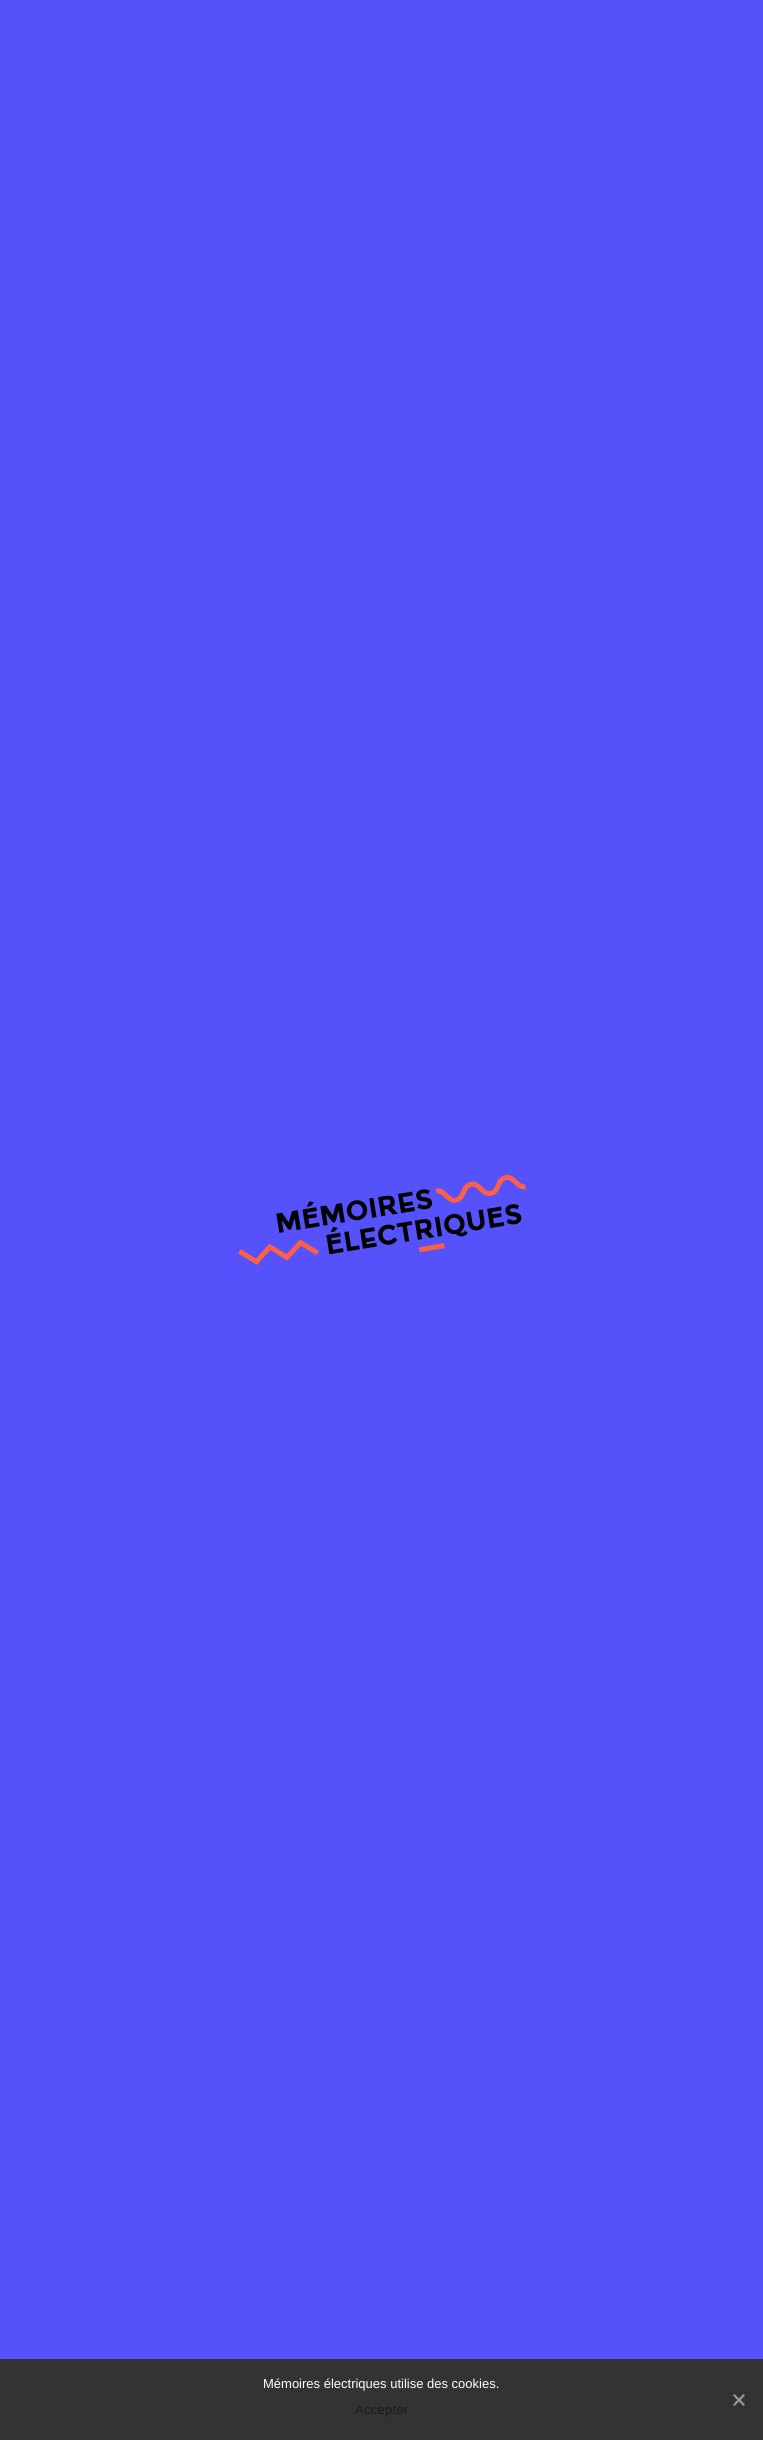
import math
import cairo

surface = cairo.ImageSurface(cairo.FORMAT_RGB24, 763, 2440)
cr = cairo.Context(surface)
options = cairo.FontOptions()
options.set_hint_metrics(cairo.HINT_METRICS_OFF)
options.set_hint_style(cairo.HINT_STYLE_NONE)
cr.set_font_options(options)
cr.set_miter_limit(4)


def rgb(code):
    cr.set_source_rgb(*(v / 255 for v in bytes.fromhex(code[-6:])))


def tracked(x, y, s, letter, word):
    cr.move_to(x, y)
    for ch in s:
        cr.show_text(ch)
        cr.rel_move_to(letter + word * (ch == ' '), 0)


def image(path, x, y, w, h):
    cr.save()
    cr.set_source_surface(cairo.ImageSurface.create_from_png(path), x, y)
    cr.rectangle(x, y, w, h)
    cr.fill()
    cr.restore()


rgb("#5551fb")
cr.paint()
image("img/1.png", 238, 1175, 288, 90)
rgb("#333333")
cr.rectangle(0, 2359, 763, 81)
cr.fill()
rgb("#999999")
cr.new_path()
cr.move_to(743.5, 2394)
cr.line_to(745, 2395.5)
cr.line_to(734.5, 2406)
cr.line_to(733, 2404.5)
cr.close_path()
cr.fill()
cr.new_path()
cr.move_to(733, 2395.5)
cr.line_to(734.5, 2394)
cr.line_to(745, 2404.5)
cr.line_to(743.5, 2406)
cr.close_path()
cr.fill()
cr.select_font_face("Liberation Sans")
cr.set_font_size(13)
rgb("#ffffff")
cr.move_to(263, 2388)
cr.show_text("Mémoires électriques utilise des cookies.")
rgb("#1a1a1a")
tracked(355, 2414, "Accepter", 0.25, 0)
surface.write_to_png("page.png")
